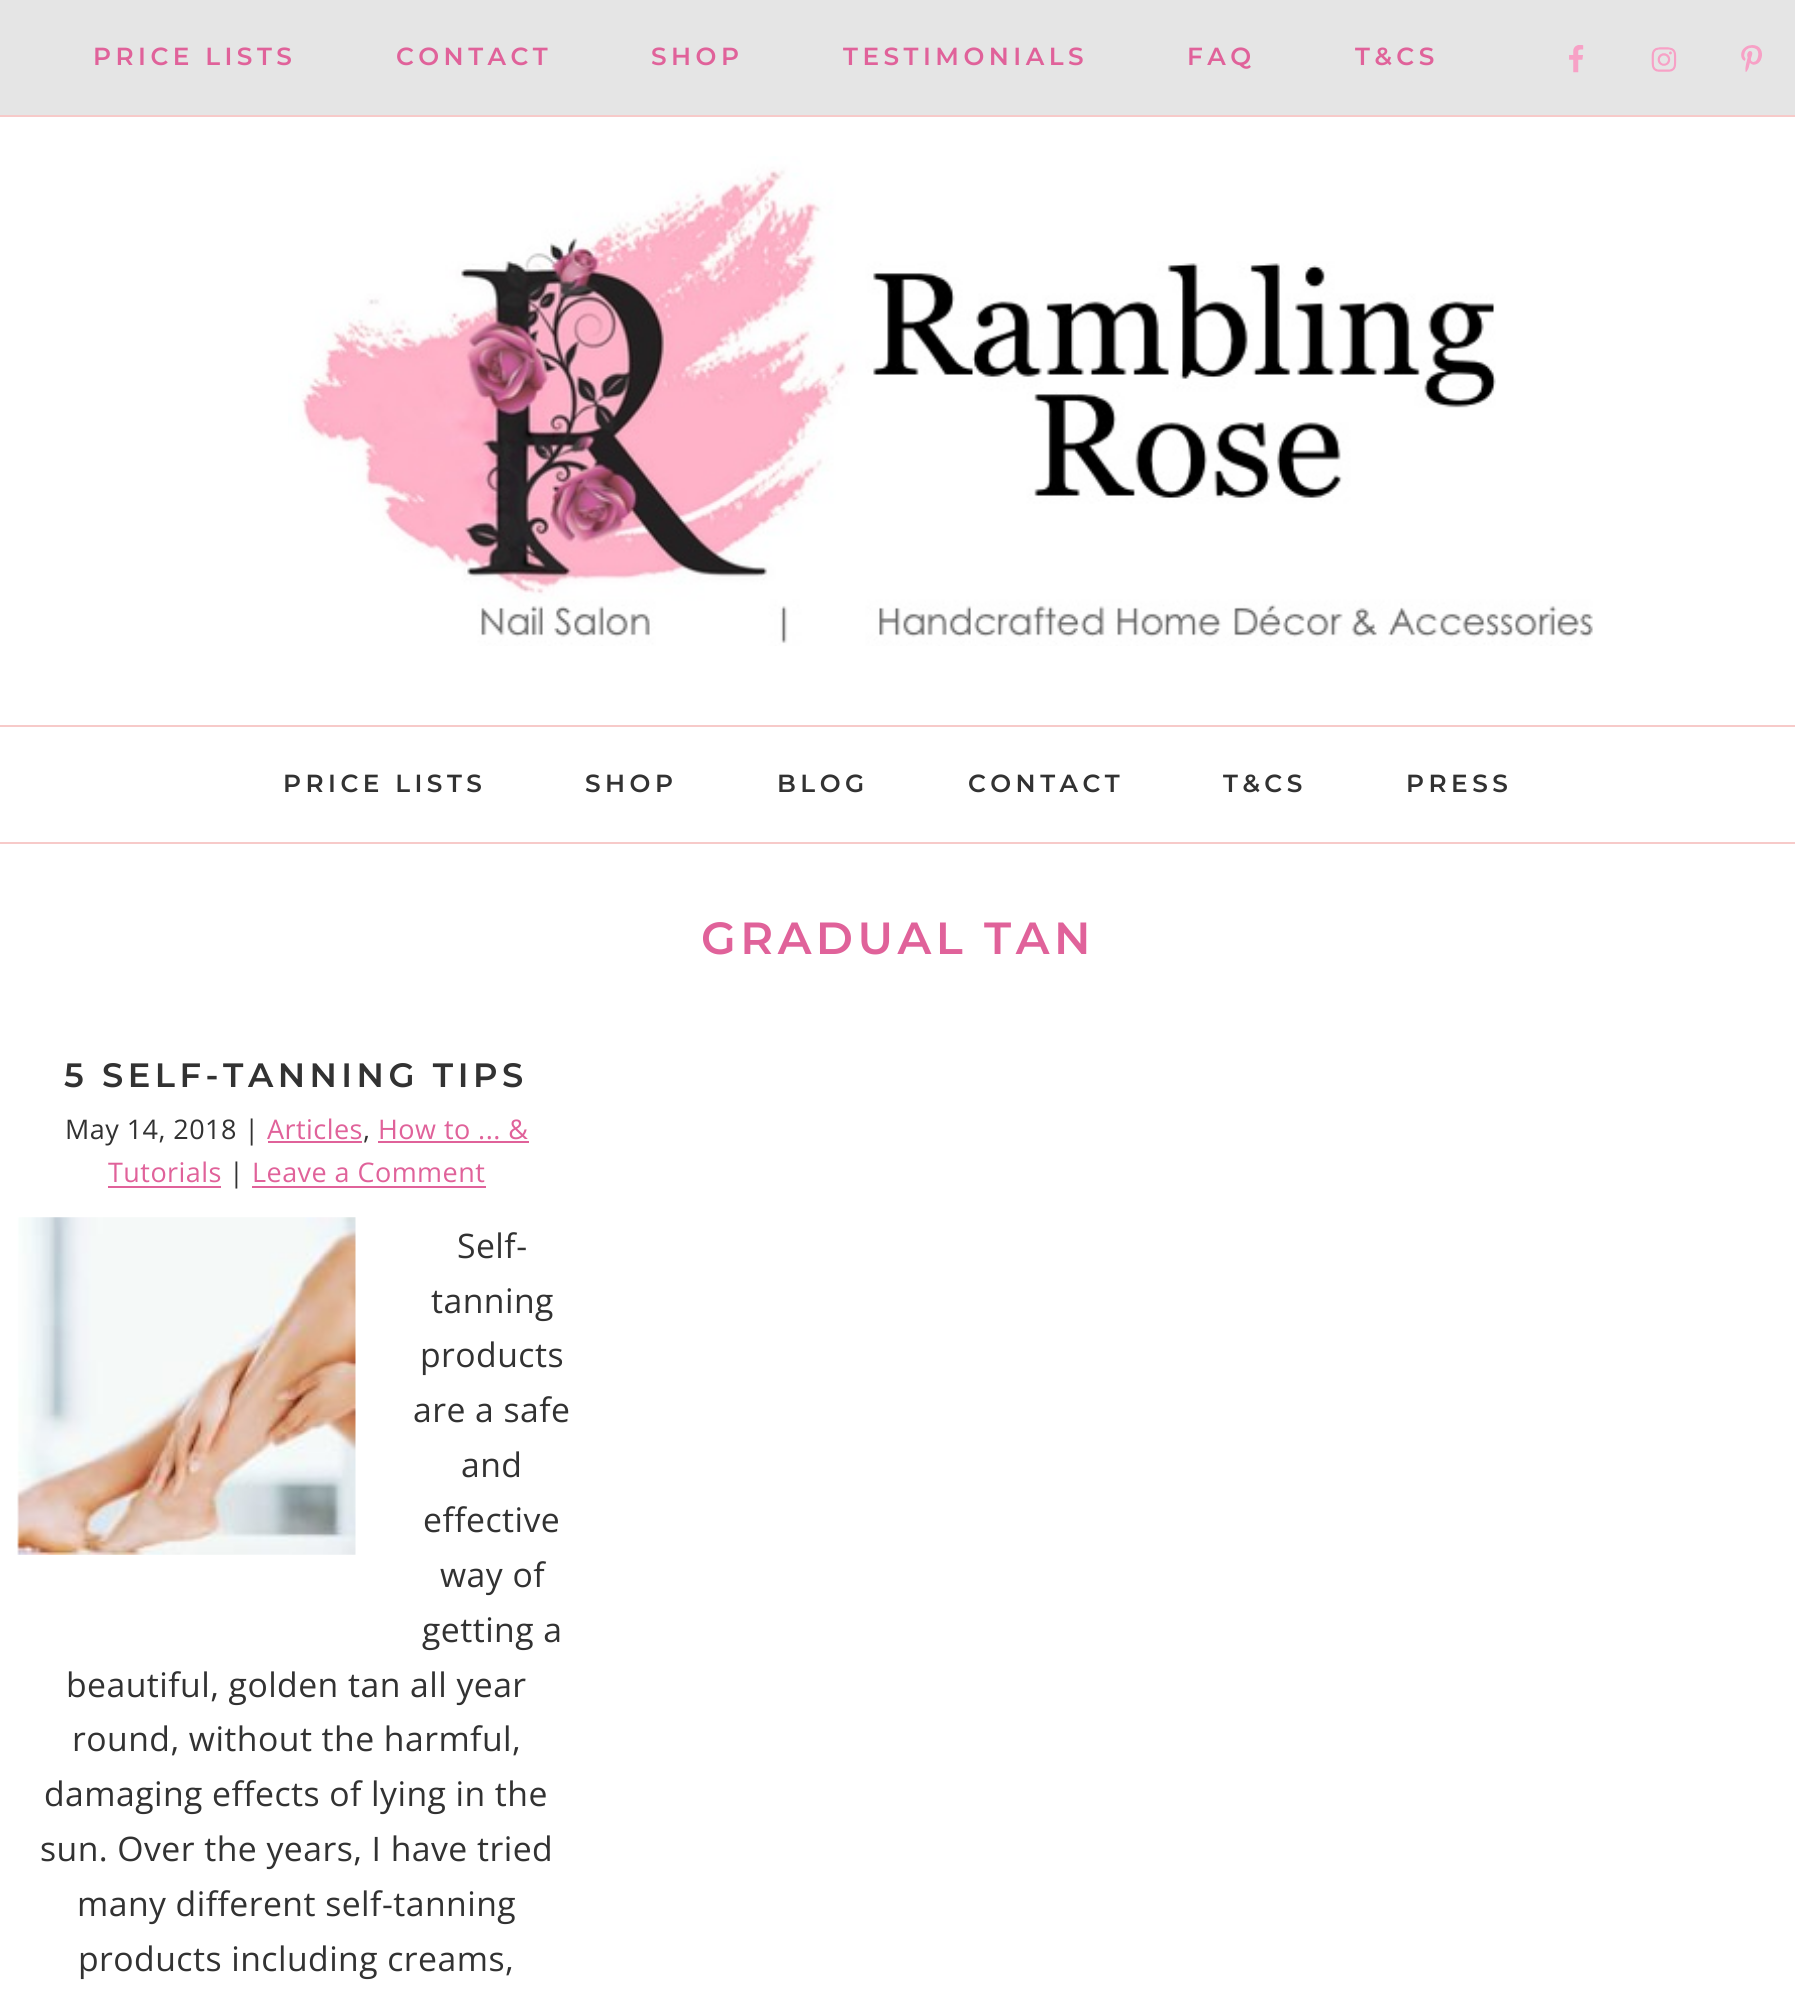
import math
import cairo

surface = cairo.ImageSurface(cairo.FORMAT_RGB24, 1795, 2015)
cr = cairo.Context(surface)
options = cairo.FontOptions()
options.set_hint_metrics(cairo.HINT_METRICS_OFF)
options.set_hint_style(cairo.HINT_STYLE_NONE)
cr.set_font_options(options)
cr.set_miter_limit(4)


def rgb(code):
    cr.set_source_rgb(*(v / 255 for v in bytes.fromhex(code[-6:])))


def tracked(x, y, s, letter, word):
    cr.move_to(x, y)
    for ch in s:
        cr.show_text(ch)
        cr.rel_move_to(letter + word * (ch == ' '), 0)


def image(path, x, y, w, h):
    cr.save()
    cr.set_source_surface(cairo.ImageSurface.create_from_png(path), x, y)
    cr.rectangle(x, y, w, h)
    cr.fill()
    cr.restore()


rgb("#ffffff")
cr.paint()
rgb("#e5e5e5")
cr.rectangle(0, 0, 1795, 115)
cr.fill()
rgb("#f7cac9")
cr.rectangle(0, 115, 1795, 2)
cr.fill()
image("img/1.png", 1569, 45, 15, 28)
image("img/2.png", 1651, 47, 26, 25)
image("img/3.png", 1741, 45, 21, 27)
image("img/4.png", 288, 156, 1305, 490)
for x, y, w, h, color in [
    (0, 725, 1795, 2, "#f7cac9"),
    (0, 842, 1795, 2, "#f7cac9"),
    (268, 1141, 94, 2, "#e0629a"),
    (378, 1141, 151, 2, "#e0629a"),
    (108, 1186, 113, 2, "#e0629a"),
    (252, 1186, 234, 2, "#e0629a"),
]:
    rgb(color)
    cr.rectangle(x, y, w, h)
    cr.fill()
image("img/5.png", 17, 1217, 339, 338)
cr.select_font_face("Montserrat SemiBold")
cr.set_font_size(24.75)
for x, y, s in [
    (93, 65, "PRICE LISTS"),
    (396, 65, "CONTACT"),
    (651, 65, "SHOP"),
    (843, 65, "TESTIMONIALS"),
    (1187, 65, "FAQ"),
    (1355, 65, "T&CS"),
]:
    tracked(x, y, s, 4.5, 0)
rgb("#323232")
for x, y, s in [
    (283, 792, "PRICE LISTS"),
    (585, 792, "SHOP"),
    (777, 792, "BLOG"),
    (968, 792, "CONTACT"),
    (1223, 792, "T&CS"),
    (1406, 792, "PRESS"),
]:
    tracked(x, y, s, 4.5, 0)
cr.set_font_size(45)
rgb("#e0629a")
tracked(701, 954, "GRADUAL TAN", 4.5, 0)
cr.set_font_size(33.75)
rgb("#323232")
tracked(64, 1087, "5 SELF-TANNING TIPS", 4.5, 0)
cr.select_font_face("Open Sans")
cr.set_font_size(27)
tracked(65, 1139, "May 14, 2018 |", 0.45, 0)
rgb("#e0629a")
tracked(267, 1139, "Articles", 0.45, 0)
rgb("#323232")
tracked(363, 1139, ",", 0.45, 0)
rgb("#e0629a")
tracked(378, 1139, "How to ... &", 0.45, 0)
tracked(108, 1182, "Tutorials", 0.45, 0)
rgb("#323232")
tracked(229, 1182, "|", 0.45, 0)
rgb("#e0629a")
tracked(252, 1182, "Leave a Comment", 0.45, 0)
cr.set_font_size(33.75)
rgb("#323232")
for x, y, s in [
    (457, 1258, "Self-"),
    (431, 1313, "tanning"),
    (420, 1367, "products"),
    (413, 1422, "are a safe"),
    (461, 1477, "and"),
    (423, 1532, "effective"),
    (440, 1587, "way of"),
    (422, 1642, "getting a"),
    (66, 1697, "beautiful, golden tan all year"),
    (72, 1751, "round, without the harmful,"),
    (44, 1806, "damaging effects of lying in the"),
    (40, 1861, "sun. Over the years, I have tried"),
    (77, 1916, "many different self-tanning"),
    (78, 1971, "products including creams,"),
]:
    tracked(x, y, s, 0.45, 0)
surface.write_to_png("page.png")
